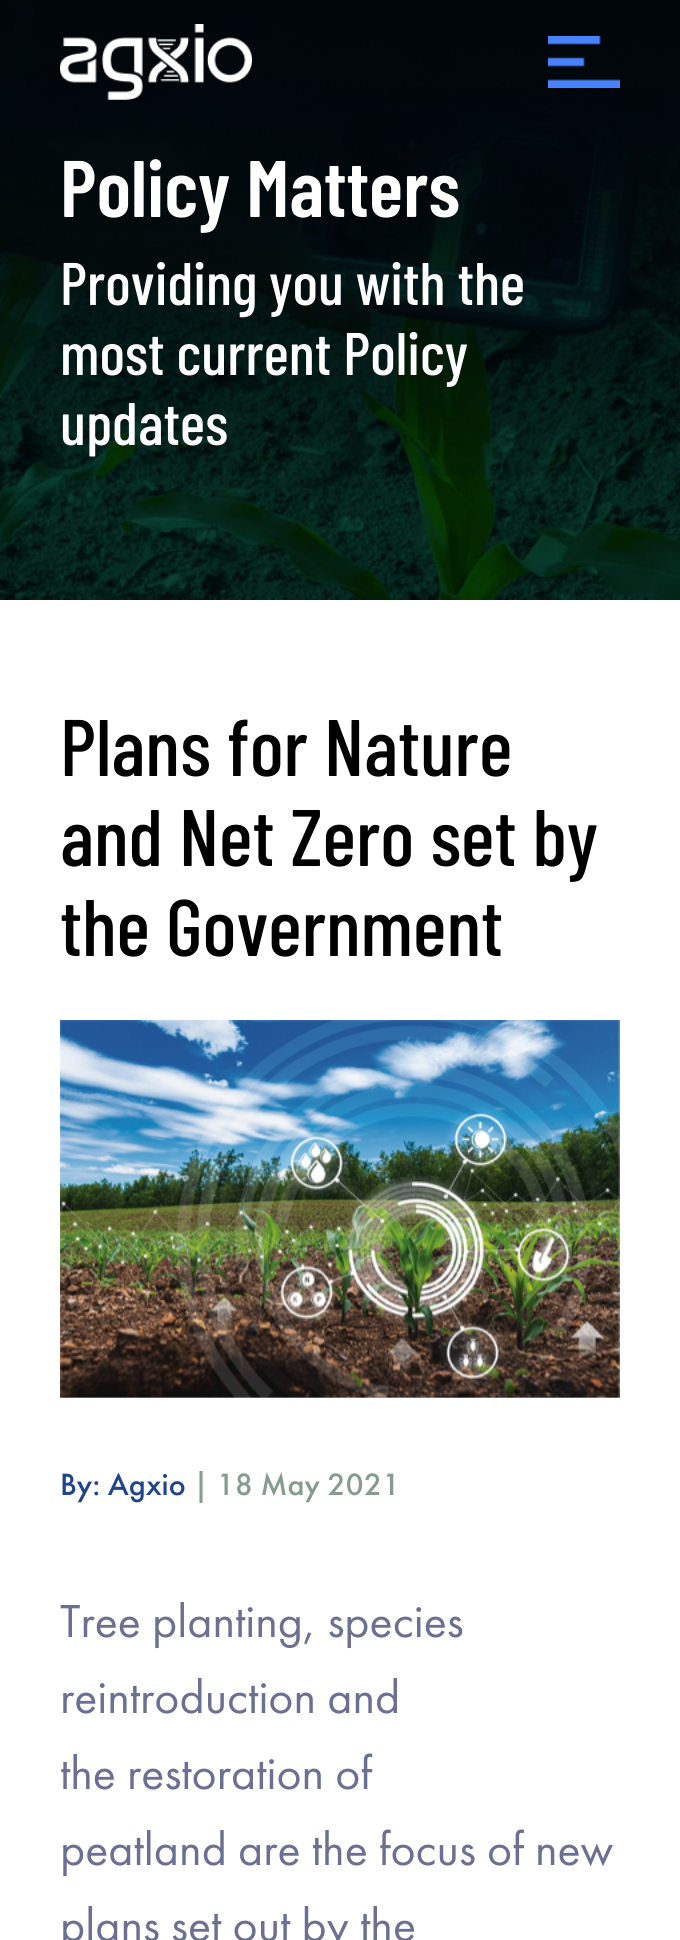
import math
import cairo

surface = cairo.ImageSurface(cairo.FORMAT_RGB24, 680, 1940)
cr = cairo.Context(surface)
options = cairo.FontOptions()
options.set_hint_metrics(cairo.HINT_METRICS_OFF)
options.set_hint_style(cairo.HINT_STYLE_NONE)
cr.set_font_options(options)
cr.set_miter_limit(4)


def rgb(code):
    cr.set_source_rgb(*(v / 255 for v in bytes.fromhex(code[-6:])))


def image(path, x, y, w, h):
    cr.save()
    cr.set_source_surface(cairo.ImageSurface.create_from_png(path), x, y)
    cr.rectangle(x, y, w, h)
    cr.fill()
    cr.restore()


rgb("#ffffff")
cr.paint()
image("img/3.png", 0, 0, 680, 600)
image("img/4.png", 0, 0, 680, 476)
image("img/1.png", 60, 24, 192, 76)
image("img/2.png", 548, 36, 72, 52)
image("img/5.png", 60, 1020, 560, 378)
cr.select_font_face("Barlow Condensed SemiBold")
cr.set_font_size(80)
rgb("#ffffff")
cr.move_to(60, 217)
cr.show_text("Policy Matters")
cr.select_font_face("Barlow Condensed Medium")
cr.set_font_size(60)
for x, y, s in [
    (60, 305, "Providing you with the"),
    (60, 375, "most current Policy"),
    (60, 445, "updates"),
]:
    cr.move_to(x, y)
    cr.show_text(s)
cr.set_font_size(80)
rgb("#000000")
for x, y, s in [
    (60, 776, "Plans for Nature"),
    (60, 866, "and Net Zero set by"),
    (60, 956, "the Government"),
]:
    cr.move_to(x, y)
    cr.show_text(s)
cr.select_font_face("Futura PT Medium")
cr.set_font_size(32)
rgb("#20438d")
cr.move_to(60, 1495)
cr.show_text("By: Agxio")
rgb("#859b8f")
cr.move_to(193, 1495)
cr.show_text("| 18 May 2021")
cr.select_font_face("Futura PT")
cr.set_font_size(48)
rgb("#6b7093")
for x, y, s in [
    (60, 1637, "Tree planting, species"),
    (60, 1713, "reintroduction and"),
    (60, 1789, "the restoration of"),
    (60, 1865, "peatland are the focus of new"),
    (60, 1941, "plans set out by the"),
]:
    cr.move_to(x, y)
    cr.show_text(s)
surface.write_to_png("page.png")
